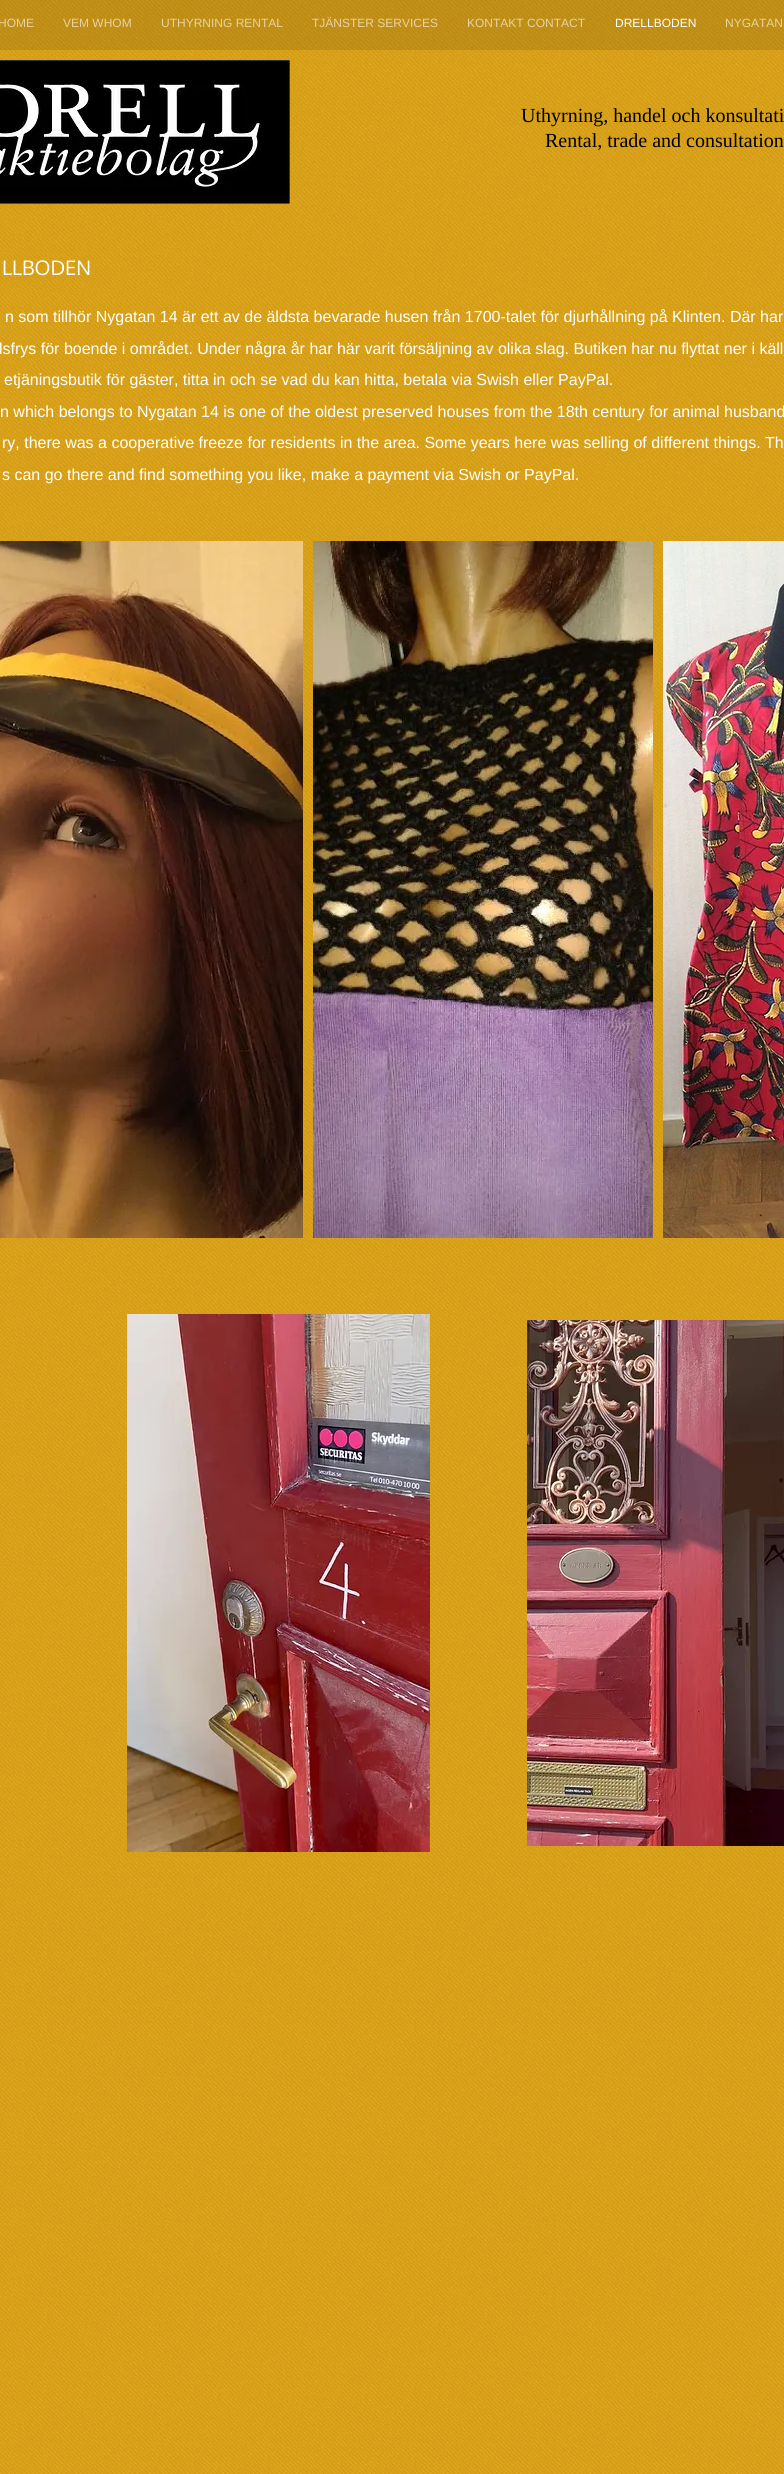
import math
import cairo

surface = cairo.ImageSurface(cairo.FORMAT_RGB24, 784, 2474)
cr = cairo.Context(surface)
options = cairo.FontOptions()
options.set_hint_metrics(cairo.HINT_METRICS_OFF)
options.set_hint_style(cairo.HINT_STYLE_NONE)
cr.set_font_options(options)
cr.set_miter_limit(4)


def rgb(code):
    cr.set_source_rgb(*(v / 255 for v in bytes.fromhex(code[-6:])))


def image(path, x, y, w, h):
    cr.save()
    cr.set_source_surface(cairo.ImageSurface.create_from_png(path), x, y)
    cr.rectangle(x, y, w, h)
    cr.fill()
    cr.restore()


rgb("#ffffff")
cr.paint()
image("img/1.png", 0, 0, 784, 2474)
cr.set_source_rgba(0, 0, 0, 0.11)
cr.rectangle(0, 0, 784, 50)
cr.fill()
image("img/2.png", 0, 60, 290, 144)
image("img/3.png", 0, 541, 303, 697)
image("img/4.png", 313, 541, 340, 697)
image("img/5.png", 663, 541, 121, 697)
image("img/6.png", 127, 1314, 303, 538)
image("img/7.png", 527, 1320, 257, 526)
cr.select_font_face("Liberation Sans")
cr.set_font_size(12)
rgb("#e6d2a2")
for x, y, s in [
    (-2, 27, "HOME"),
    (63, 27, "VEM WHOM"),
    (161, 27, "UTHYRNING RENTAL"),
    (312, 27, "TJÄNSTER SERVICES"),
    (467, 27, "KONTAKT CONTACT"),
]:
    cr.move_to(x, y)
    cr.show_text(s)
rgb("#ffffff")
cr.move_to(615, 27)
cr.show_text("DRELLBODEN")
rgb("#e6d2a2")
cr.move_to(725, 27)
cr.show_text("NYGATAN")
cr.select_font_face("Liberation Serif")
cr.set_font_size(20)
rgb("#000000")
cr.move_to(521, 122)
cr.show_text("Uthyrning, handel och konsultati")
cr.move_to(545, 147)
cr.show_text("Rental, trade and consultation")
cr.select_font_face("Oxygen")
rgb("#ffffff")
cr.move_to(2, 275)
cr.show_text("LLBODEN")
cr.select_font_face("Liberation Sans")
cr.set_font_size(16)
for x, y, s in [
    (5, 322, "n som tillhör Nygatan 14 är ett av de äldsta bevarade husen från 1700-talet för djurhållning på Klinten. Där har"),
    (-1, 354, "lsfrys för boende i området. Under några år har här varit försäljning av olika slag. Butiken har nu flyttat ner i käll"),
    (4, 385, "etjäningsbutik för gäster, titta in och se vad du kan hitta, betala via Swish eller PayPal."),
    (0, 417, "n which belongs to Nygatan 14 is one of the oldest preserved houses from the 18th century for animal husband"),
    (2, 448, "ry, there was a cooperative freeze for residents in the area. Some years here was selling of different things. Th"),
    (2, 480, "s can go there and find something you like, make a payment via Swish or PayPal."),
]:
    cr.move_to(x, y)
    cr.show_text(s)
surface.write_to_png("page.png")
